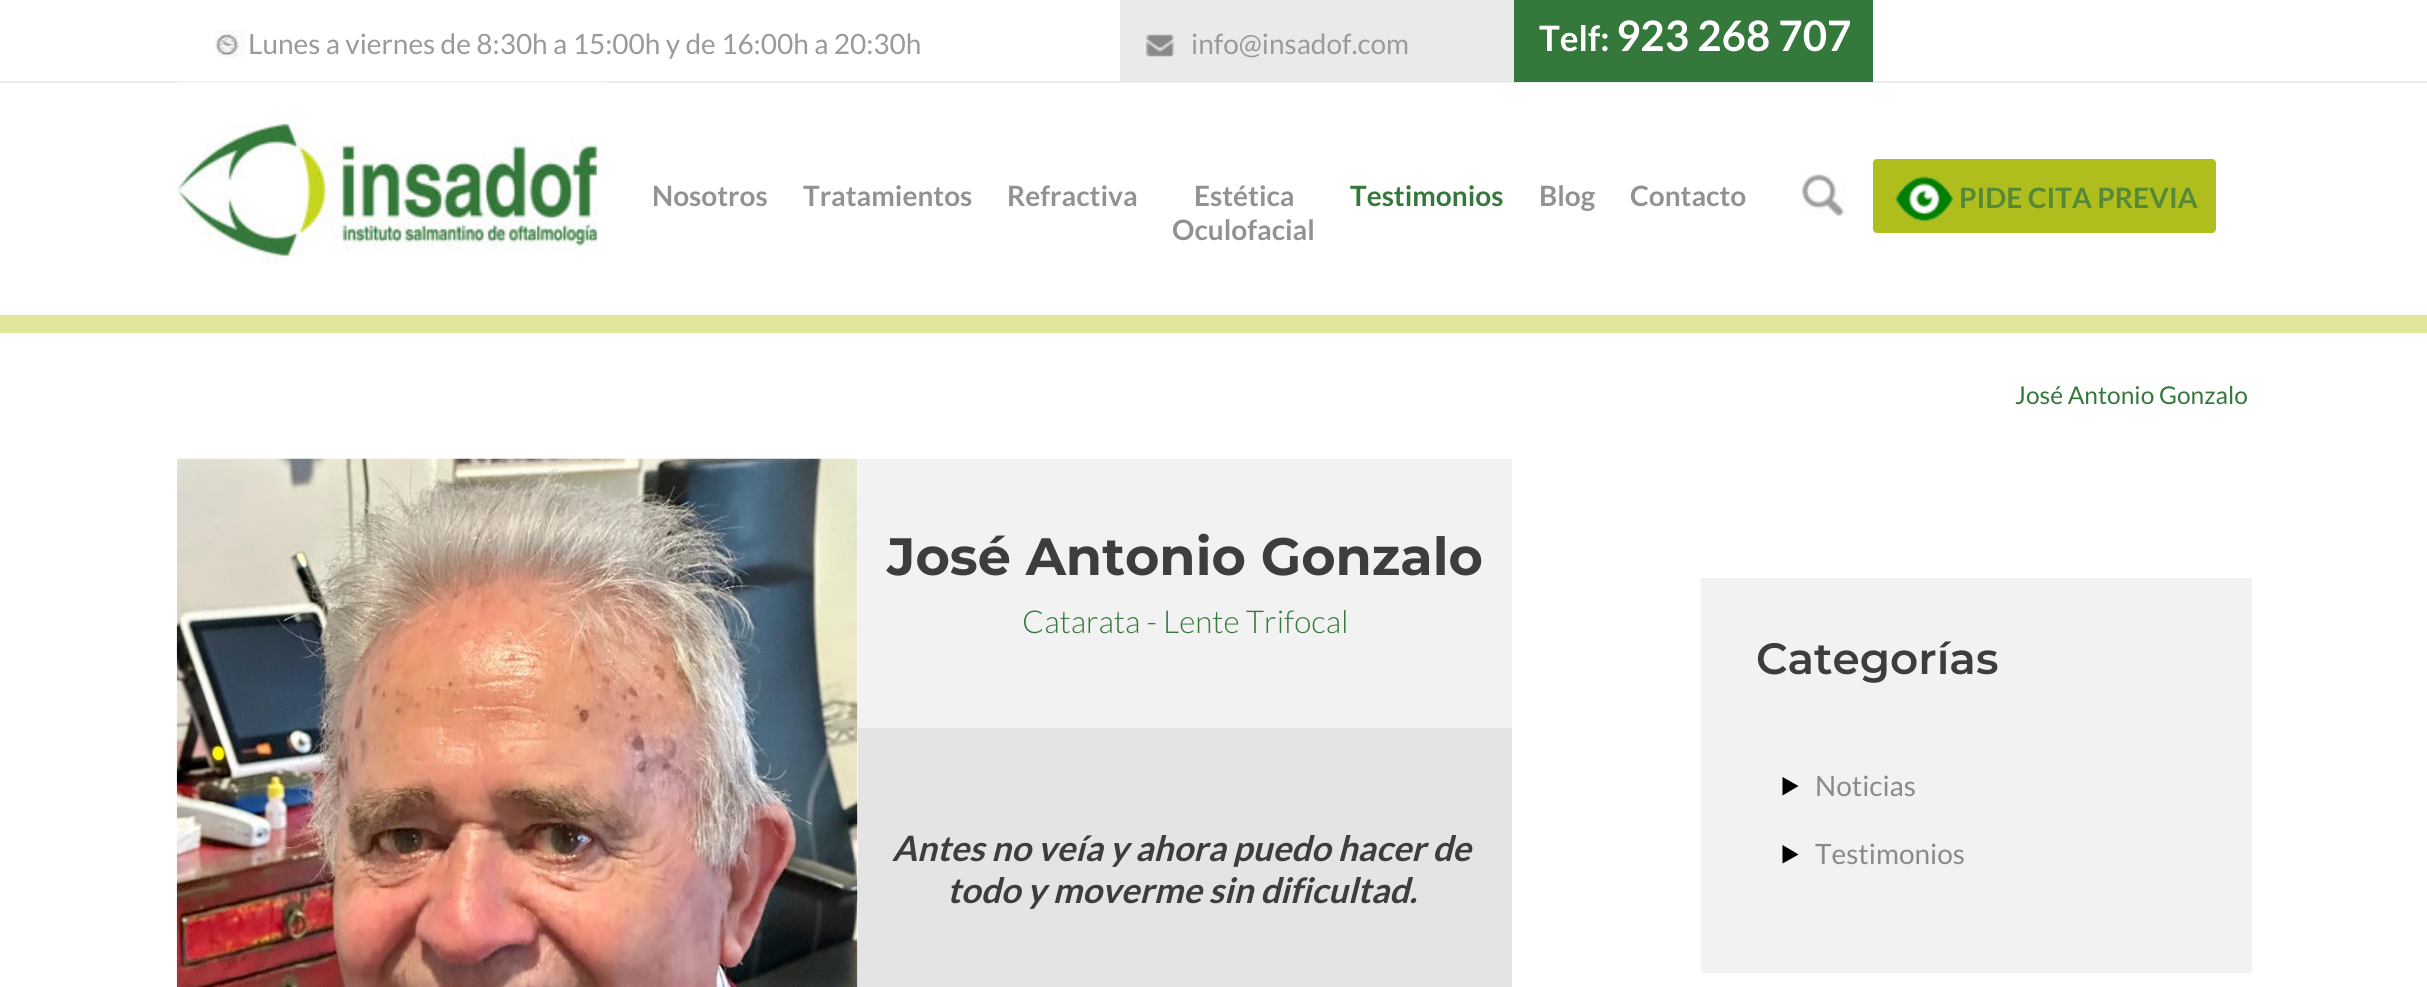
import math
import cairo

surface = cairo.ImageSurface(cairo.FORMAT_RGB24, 2427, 987)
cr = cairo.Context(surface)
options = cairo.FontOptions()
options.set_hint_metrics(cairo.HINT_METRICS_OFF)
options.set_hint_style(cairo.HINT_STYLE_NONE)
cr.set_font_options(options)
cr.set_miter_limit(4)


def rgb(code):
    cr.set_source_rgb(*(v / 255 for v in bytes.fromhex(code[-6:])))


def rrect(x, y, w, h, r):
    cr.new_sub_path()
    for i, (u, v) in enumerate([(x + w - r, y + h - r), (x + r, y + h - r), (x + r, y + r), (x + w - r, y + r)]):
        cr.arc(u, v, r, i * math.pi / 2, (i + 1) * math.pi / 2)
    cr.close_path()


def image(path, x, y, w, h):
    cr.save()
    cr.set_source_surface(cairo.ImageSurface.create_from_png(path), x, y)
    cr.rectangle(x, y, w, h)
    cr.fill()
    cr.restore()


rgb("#ffffff")
cr.paint()
rgb("#ecebec")
cr.rectangle(0, 81, 2427, 2)
cr.fill()
image("img/1.png", 214, 30, 31, 28)
rgb("#e9eaeb")
cr.rectangle(1120, 0, 394, 81)
cr.fill()
image("img/2.png", 1146, 34, 29, 23)
rgb("#35783b")
cr.rectangle(1514, 0, 359, 82)
cr.fill()
image("img/3.png", 177, 82, 430, 182)
image("img/4.png", 1801, 174, 45, 42)
rgb("#afbe1d")
rrect(1873, 159, 343, 74, 4)
cr.fill()
image("img/5.png", 1895, 176, 58, 45)
rgb("#e2e69d")
cr.rectangle(0, 315, 2427, 18)
cr.fill()
image("img/6.png", 176, 458, 682, 529)
for x, y, w, h, color in [
    (858, 728, 654, 259, "#e4e4e4"),
    (858, 459, 654, 269, "#f2f2f2"),
    (1701, 578, 551, 395, "#f2f2f2"),
]:
    rgb(color)
    cr.rectangle(x, y, w, h)
    cr.fill()
rgb("#000000")
cr.new_path()
cr.move_to(1782.5, 777)
cr.line_to(1798.5, 786)
cr.line_to(1782.5, 795.5)
cr.close_path()
cr.fill()
cr.new_path()
cr.move_to(1782.5, 845)
cr.line_to(1798.5, 854.5)
cr.line_to(1782.5, 863.5)
cr.close_path()
cr.fill()
cr.select_font_face("Lato")
cr.set_font_size(28)
rgb("#9a9a9a")
cr.move_to(248, 54)
cr.show_text("Lunes a viernes de 8:30h a 15:00h y de 16:00h a 20:30h")
cr.move_to(1191, 54)
cr.show_text("info@insadof.com")
cr.select_font_face("Lato", cairo.FONT_SLANT_NORMAL, cairo.FONT_WEIGHT_BOLD)
cr.set_font_size(35)
rgb("#ffffff")
cr.move_to(1539, 51)
cr.show_text("Telf:")
cr.set_font_size(42)
cr.move_to(1616, 51)
cr.show_text("923 268 707")
cr.set_font_size(28)
rgb("#929292")
for x, y, s in [
    (652, 206, "Nosotros"),
    (803, 206, "Tratamientos"),
    (1007, 206, "Refractiva"),
    (1194, 206, "Estética"),
    (1172, 240, "Oculofacial"),
]:
    cr.move_to(x, y)
    cr.show_text(s)
rgb("#35783b")
cr.move_to(1350, 206)
cr.show_text("Testimonios")
rgb("#929292")
cr.move_to(1539, 206)
cr.show_text("Blog")
cr.move_to(1630, 206)
cr.show_text("Contacto")
rgb("#558937")
cr.move_to(1959, 208)
cr.show_text("PIDE CITA PREVIA")
cr.select_font_face("Lato")
cr.set_font_size(24.5)
rgb("#35783b")
cr.move_to(2015, 404)
cr.show_text("José Antonio Gonzalo")
cr.select_font_face("Montserrat", cairo.FONT_SLANT_NORMAL, cairo.FONT_WEIGHT_BOLD)
cr.set_font_size(52.5)
rgb("#3d3d3d")
cr.move_to(887, 575)
cr.show_text("José Antonio Gonzalo")
cr.select_font_face("Lato Light")
cr.set_font_size(31.5)
rgb("#35783b")
cr.move_to(1022, 633)
cr.show_text("Catarata - Lente Trifocal")
cr.select_font_face("Lato", cairo.FONT_SLANT_ITALIC, cairo.FONT_WEIGHT_BOLD)
cr.set_font_size(35)
rgb("#3d3d3d")
cr.move_to(892, 861)
cr.show_text("Antes no veía y ahora puedo hacer de")
cr.move_to(947, 903)
cr.show_text("todo y moverme sin dificultad.")
cr.select_font_face("Montserrat SemiBold")
cr.set_font_size(43.75)
cr.move_to(1756, 674)
cr.show_text("Categorías")
cr.select_font_face("Lato")
cr.set_font_size(28)
rgb("#8a8a8a")
cr.move_to(1815, 796)
cr.show_text("Noticias")
cr.move_to(1815, 864)
cr.show_text("Testimonios")
surface.write_to_png("page.png")
